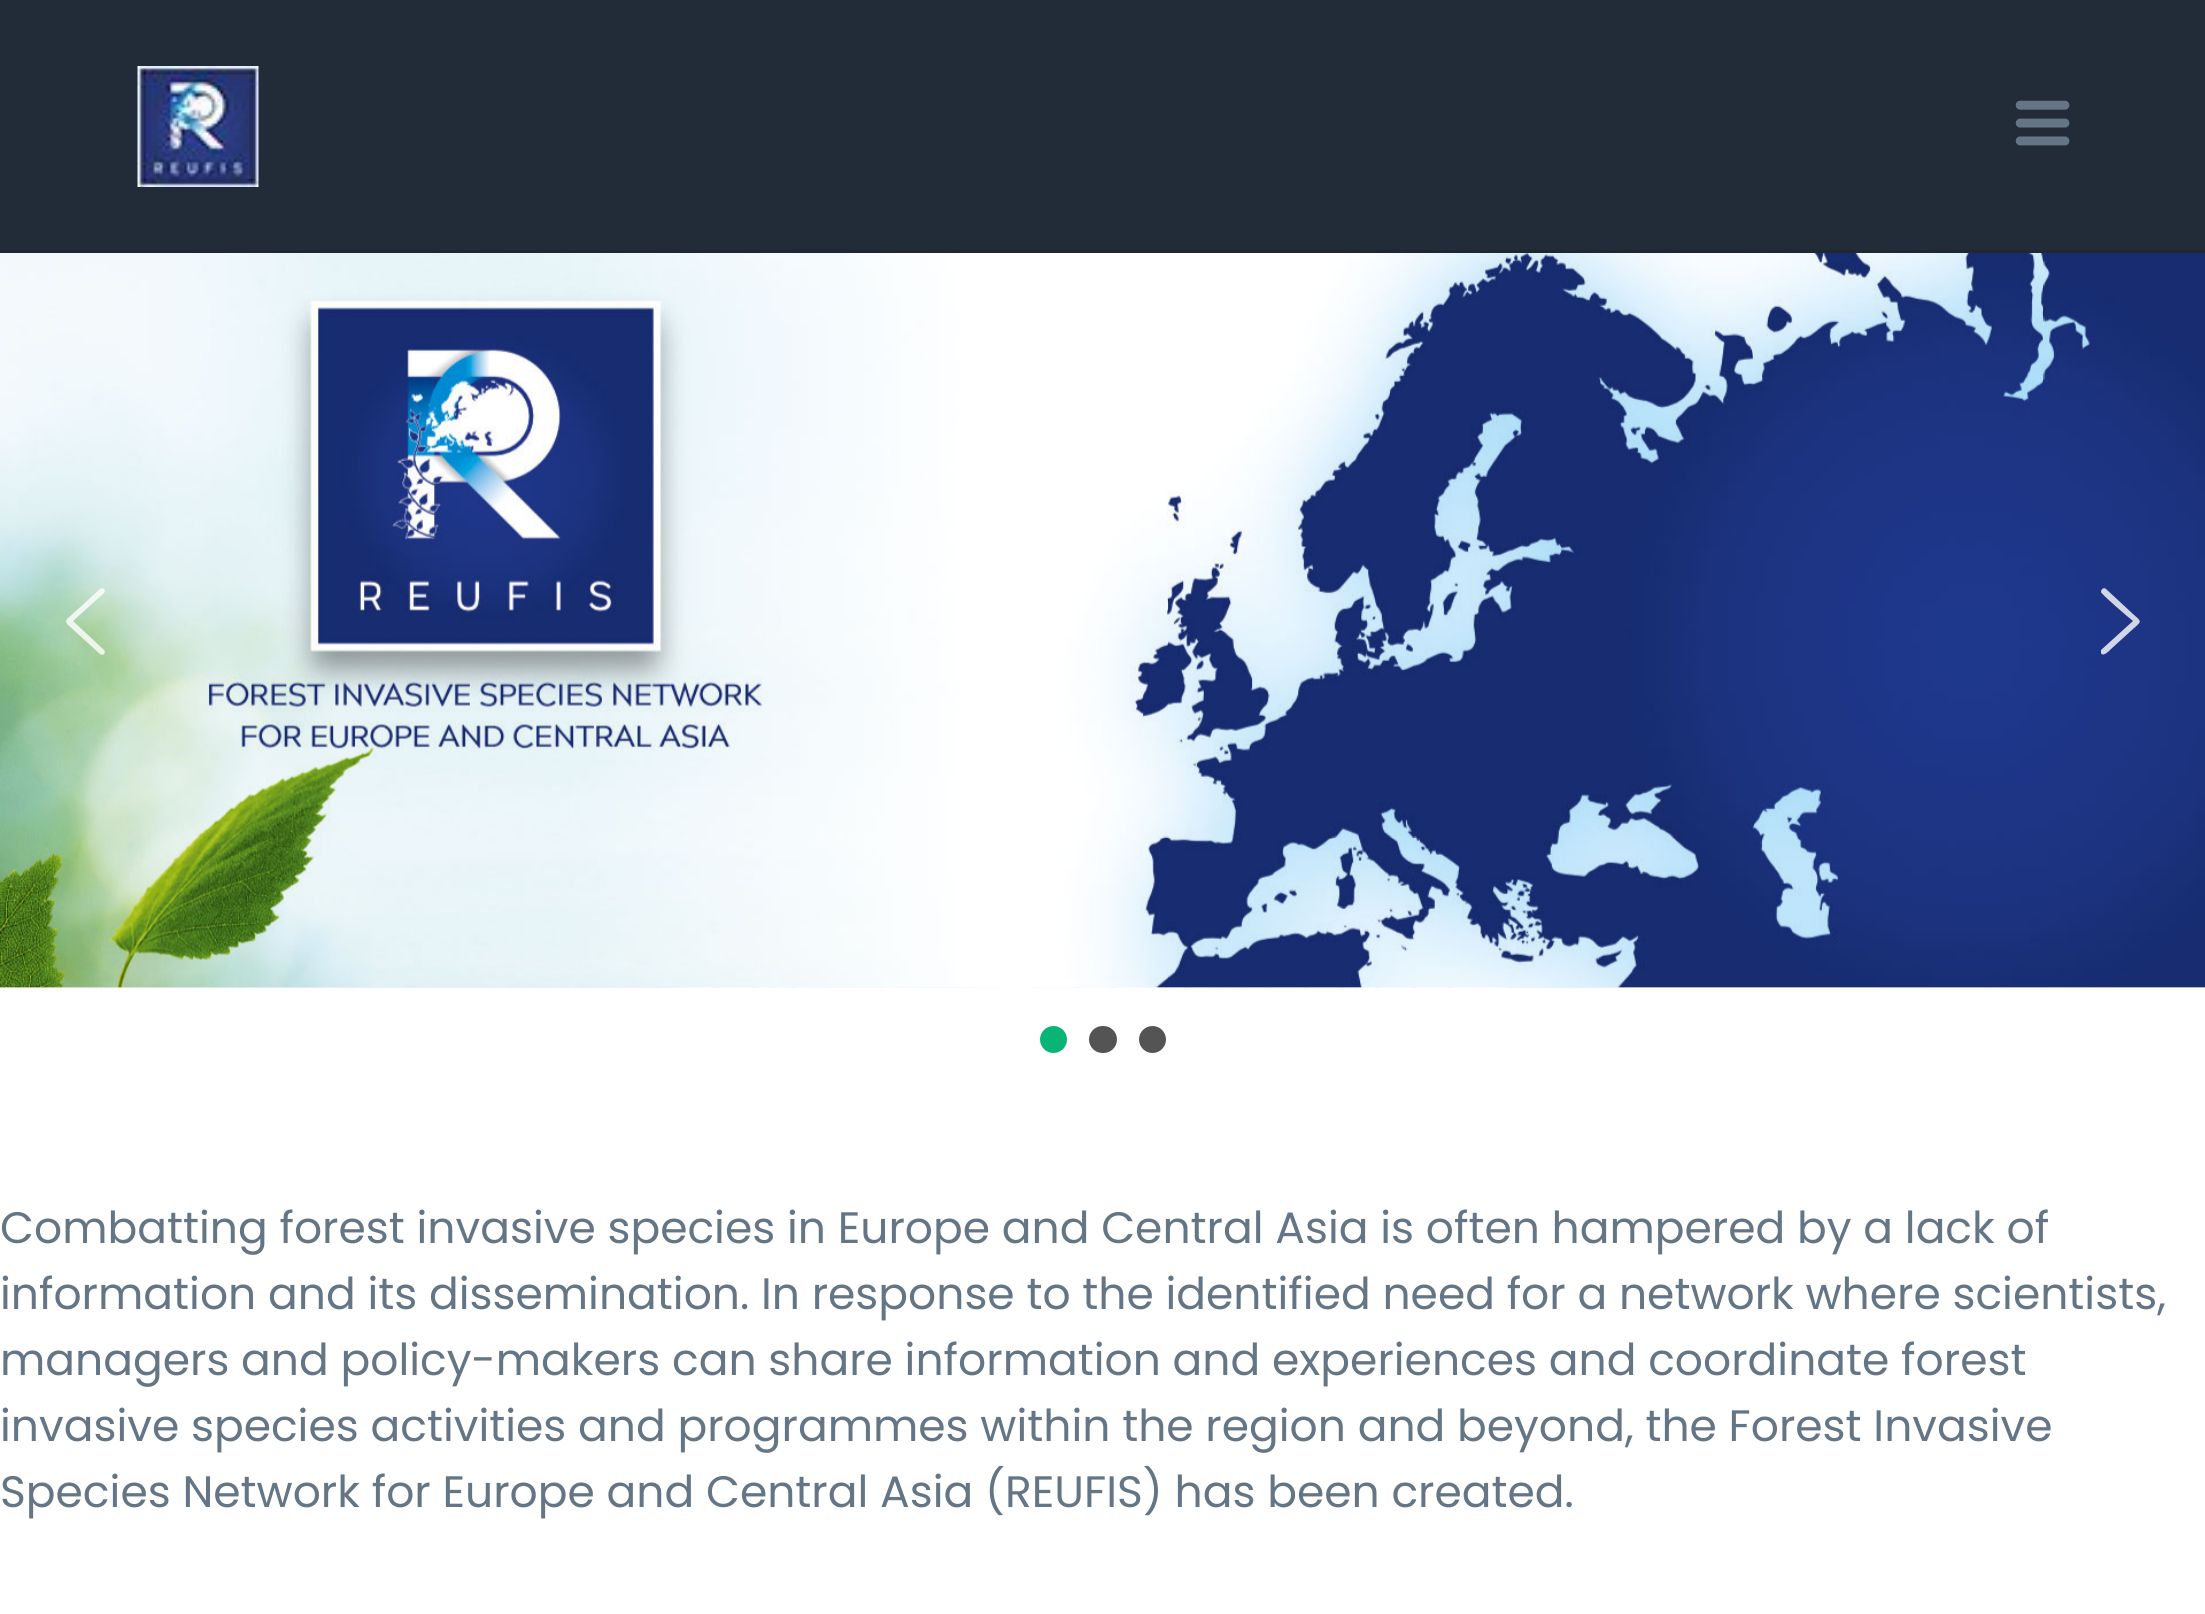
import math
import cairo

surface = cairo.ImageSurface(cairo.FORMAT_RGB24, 2205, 1614)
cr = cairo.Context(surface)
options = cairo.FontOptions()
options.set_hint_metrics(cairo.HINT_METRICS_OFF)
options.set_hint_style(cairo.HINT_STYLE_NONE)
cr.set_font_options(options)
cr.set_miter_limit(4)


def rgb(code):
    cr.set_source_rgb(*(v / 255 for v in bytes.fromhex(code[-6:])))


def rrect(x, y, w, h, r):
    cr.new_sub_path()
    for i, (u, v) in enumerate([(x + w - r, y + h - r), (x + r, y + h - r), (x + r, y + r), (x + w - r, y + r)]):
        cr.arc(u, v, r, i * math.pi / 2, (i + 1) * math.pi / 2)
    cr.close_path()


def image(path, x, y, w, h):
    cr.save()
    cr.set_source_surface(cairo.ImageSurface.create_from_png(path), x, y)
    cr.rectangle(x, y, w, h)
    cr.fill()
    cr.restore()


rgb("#ffffff")
cr.paint()
rgb("#222b38")
cr.rectangle(0, 0, 2205, 250)
cr.fill()
rgb("#1f2732")
cr.rectangle(0, 250, 2205, 3)
cr.fill()
image("img/1.png", 137, 66, 122, 121)
image("img/2.png", 2015, 100, 55, 46)
image("img/4.png", 0, 987, 2205, 1)
image("img/3.png", 0, 253, 2205, 735)
cr.set_source_rgba(1, 1, 1, 0.8)
cr.set_fill_rule(cairo.FILL_RULE_EVEN_ODD)
cr.new_path()
cr.move_to(73, 621)
cr.line_to(104, 593)
cr.curve_to(105, 592, 105, 590, 104, 589)
cr.curve_to(103, 588, 101, 588, 100, 589)
cr.line_to(67, 619)
cr.line_to(66, 621)
cr.line_to(67, 624)
cr.line_to(100, 654)
cr.curve_to(101, 655, 103, 655, 104, 654)
cr.curve_to(105, 653, 105, 651, 104, 650)
cr.line_to(73, 621)
cr.fill()
rgb("#d2d7e7")
cr.new_path()
cr.move_to(2106, 589)
cr.curve_to(2104, 587, 2101, 589, 2101, 592)
cr.curve_to(2101, 594, 2129, 618, 2133, 621)
cr.line_to(2101, 650)
cr.line_to(2101, 653)
cr.curve_to(2103, 658, 2111, 649, 2111, 649)
cr.line_to(2133, 629)
cr.curve_to(2142, 621, 2142, 622, 2133, 614)
cr.close_path()
cr.fill()
rgb("#09b474")
cr.arc(1053.5, 1039.5, 13.5, 0, 2 * math.pi)
cr.fill()
rgb("#545454")
rrect(1089, 1026, 28, 27, 13.5)
cr.fill()
cr.arc(1152.5, 1039.5, 13.5, 0, 2 * math.pi)
cr.fill()
cr.select_font_face("Poppins")
cr.set_font_size(44)
rgb("#647585")
for x, y, s in [
    (0, 1243, "Combatting forest invasive species in Europe and Central Asia is often hampered by a lack of"),
    (0, 1309, "information and its dissemination. In response to the identified need for a network where scientists,"),
    (0, 1375, "managers and policy-makers can share information and experiences and coordinate forest"),
    (0, 1441, "invasive species activities and programmes within the region and beyond, the Forest Invasive"),
    (0, 1507, "Species Network for Europe and Central Asia (REUFIS) has been created."),
]:
    cr.move_to(x, y)
    cr.show_text(s)
surface.write_to_png("page.png")
